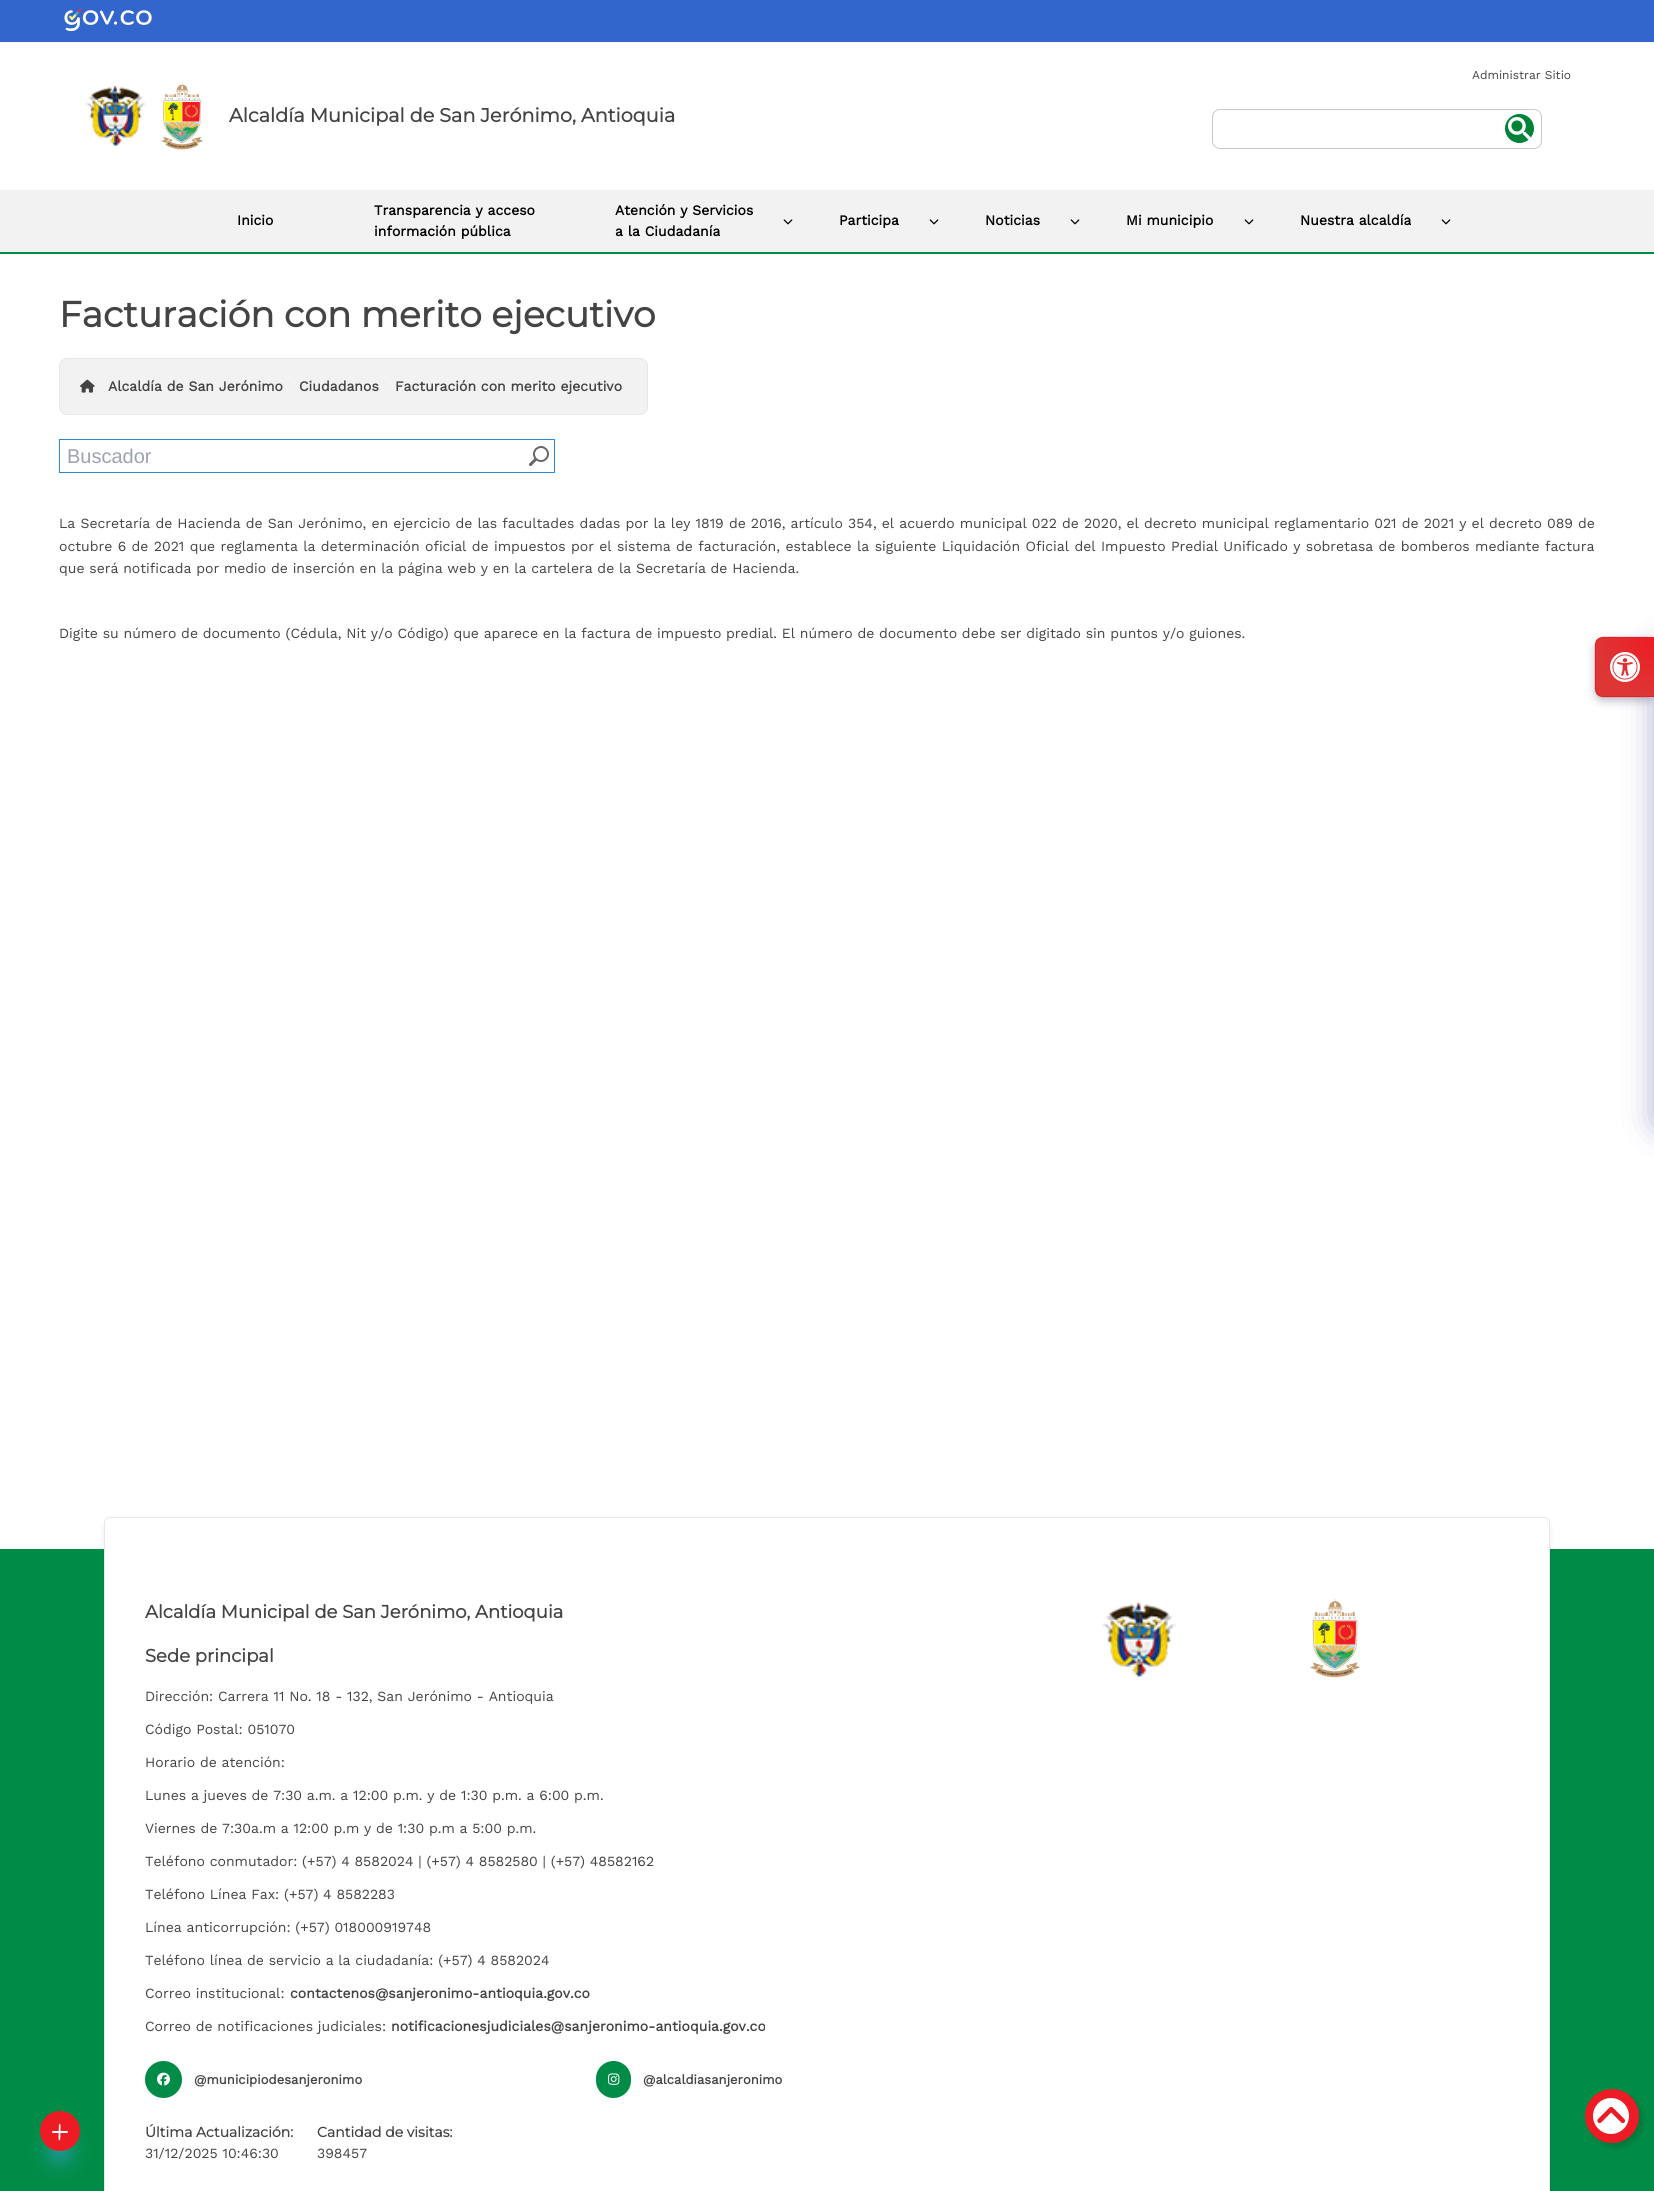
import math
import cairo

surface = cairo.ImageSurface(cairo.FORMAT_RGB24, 1654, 2191)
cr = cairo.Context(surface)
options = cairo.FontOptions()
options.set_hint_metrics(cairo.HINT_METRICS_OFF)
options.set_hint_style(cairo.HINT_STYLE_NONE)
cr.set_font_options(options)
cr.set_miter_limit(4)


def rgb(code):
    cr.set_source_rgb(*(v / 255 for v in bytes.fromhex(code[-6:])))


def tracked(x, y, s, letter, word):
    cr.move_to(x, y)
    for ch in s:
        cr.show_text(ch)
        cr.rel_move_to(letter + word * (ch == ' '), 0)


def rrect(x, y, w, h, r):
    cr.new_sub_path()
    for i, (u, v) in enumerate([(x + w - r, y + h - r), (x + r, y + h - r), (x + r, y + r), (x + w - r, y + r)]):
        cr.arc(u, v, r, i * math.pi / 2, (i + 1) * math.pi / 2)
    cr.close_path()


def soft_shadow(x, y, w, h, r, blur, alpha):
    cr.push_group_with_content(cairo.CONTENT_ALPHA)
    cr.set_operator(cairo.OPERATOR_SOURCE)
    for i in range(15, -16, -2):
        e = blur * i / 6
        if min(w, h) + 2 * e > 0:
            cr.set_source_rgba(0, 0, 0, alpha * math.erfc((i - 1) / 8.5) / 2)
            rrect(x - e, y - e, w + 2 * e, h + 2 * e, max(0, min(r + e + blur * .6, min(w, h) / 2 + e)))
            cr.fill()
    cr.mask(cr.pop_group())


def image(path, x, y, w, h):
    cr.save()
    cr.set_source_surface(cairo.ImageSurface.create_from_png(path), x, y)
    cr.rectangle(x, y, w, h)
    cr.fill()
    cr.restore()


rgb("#ffffff")
cr.paint()
rgb("#3366cc")
cr.rectangle(0, 0, 1654, 42)
cr.fill()
image("img/1.png", 64, 8, 88, 24)
rrect(1212.5, 109.5, 329, 39, 7.5)
rgb("#c9c9c9")
cr.set_line_width(1)
cr.stroke()
rgb("#008337")
cr.arc(1519.5, 128.5, 14, 0, 2 * math.pi)
cr.fill_preserve()
cr.stroke()
image("img/2.png", 1508, 117, 23, 23)
image("img/3.png", 85, 85, 61, 61)
image("img/4.png", 161, 82, 42, 68)
rgb("#f2f2f2")
cr.rectangle(0, 190, 1654, 62)
cr.fill()
rgb("#008c46")
cr.rectangle(0, 252, 1654, 2)
cr.fill()
image("img/5.png", 783, 219, 10, 6)
image("img/5.png", 929, 219, 10, 6)
image("img/5.png", 1070, 219, 10, 6)
image("img/5.png", 1244, 219, 10, 6)
image("img/5.png", 1441, 219, 10, 6)
rgb("#f2f2f2")
rrect(59.5, 358.5, 588, 56, 7.5)
cr.fill_preserve()
rgb("#e5e7eb")
cr.stroke()
image("img/6.png", 80, 379, 15, 14)
image("img/7.png", 288, 376, 6, 8)
image("img/7.png", 384, 376, 6, 8)
cr.rectangle(59.5, 439.5, 495, 33)
rgb("#2a8dd4")
cr.stroke()
image("img/8.png", 529, 446, 20, 20)
rgb("#008c46")
cr.rectangle(0, 1549, 1654, 642)
cr.fill()
rgb("#42a5f5")
soft_shadow(50, 2141, 20, 20, 10, 10, 0.5)
rgb("#ed1c24")
cr.arc(60, 2131, 20, 0, 2 * math.pi)
cr.fill()
rgb("#ffffff")
cr.new_path()
cr.move_to(60.5, 2125)
cr.curve_to(60.5, 2126.5, 60.5, 2139.5, 60, 2140)
cr.curve_to(58.5, 2141, 58.5, 2138.5, 58.5, 2137)
cr.line_to(59, 2124.5)
cr.curve_to(59, 2124, 59.5, 2124, 60, 2124)
cr.close_path()
cr.fill()
rrect(52, 2131, 16, 2, 1)
cr.fill()
rgb("#000000")
soft_shadow(105, 1522, 1444, 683, 5, 3, 0.1)
rgb("#ffffff")
cr.new_path()
cr.move_to(110, 1517)
cr.line_to(1544, 1517)
cr.curve_to(1547.5, 1517, 1550, 1519.5, 1550, 1523)
cr.line_to(1550, 2191)
cr.line_to(104, 2191)
cr.line_to(104, 1523)
cr.curve_to(104, 1519.5, 106.5, 1517, 110, 1517)
cr.close_path()
cr.fill()
rrect(104.5, 1517.5, 1445, 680, 5.5)
rgb("#e5e7eb")
cr.stroke()
image("img/9.png", 1102, 1602, 74, 75)
image("img/10.png", 1310, 1598, 50, 80)
rgb("#008c46")
cr.arc(163.5, 2079.5, 18.5, 0, 2 * math.pi)
cr.fill()
image("img/11.png", 157, 2072, 13, 14)
rrect(596, 2061, 35, 37, 17.5)
cr.fill()
image("img/12.png", 608, 2073, 12, 12)
rgb("#000000")
soft_shadow(1589, 2093, 54, 54, 27, 3, 0.16)
rgb("#ed1c24")
cr.arc(1612, 2116, 27, 0, 2 * math.pi)
cr.fill()
rgb("#ffffff")
cr.arc(1611, 2116, 18, 0, 2 * math.pi)
cr.fill()
image("img/13.png", 1597, 2106, 28, 17)
rgb("#1f2687")
soft_shadow(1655, 645, 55, 484, 8, 16, 0.37)
rgb("#2d2342")
soft_shadow(1595, 641, 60, 60, 8, 4.5, 0.3)
soft_shadow(1595, 637, 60, 60, 8, 0.5, 0.4)
cr.save()
cr.new_path()
cr.move_to(1603, 637)
cr.line_to(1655, 637)
cr.line_to(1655, 697)
cr.line_to(1603, 697)
cr.curve_to(1598.5, 697, 1595, 693.5, 1595, 689)
cr.line_to(1595, 645)
cr.curve_to(1595, 640.5, 1598.5, 637, 1603, 637)
cr.close_path()
cr.clip()
gradient = cairo.RadialGradient(1654, 638, 0, 1654, 638, 58)
gradient.add_color_stop_rgba(0, 0.929, 0.11, 0.141, 1)
gradient.add_color_stop_rgba(1, 0.871, 0.208, 0.208, 1)
cr.set_source(gradient)
cr.rectangle(1596, 638, 58, 58)
cr.fill()
cr.restore()
cr.new_path()
cr.move_to(1603, 637.5)
cr.line_to(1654.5, 637.5)
cr.line_to(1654.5, 696.5)
cr.line_to(1603, 696.5)
cr.curve_to(1599, 696.5, 1595.5, 693, 1595.5, 689)
cr.line_to(1595.5, 645)
cr.curve_to(1595.5, 641, 1599, 637.5, 1603, 637.5)
cr.close_path()
rgb("#ed1c24")
cr.stroke()
image("img/14.png", 1610, 652, 30, 30)
cr.select_font_face("Work Sans")
cr.set_font_size(12)
rgb("#444444")
cr.move_to(1472, 79)
cr.show_text("Administrar Sitio")
cr.select_font_face("Montserrat", cairo.FONT_SLANT_NORMAL, cairo.FONT_WEIGHT_BOLD)
cr.set_font_size(19.2)
cr.move_to(229, 122)
cr.show_text("Alcaldía Municipal de San Jerónimo, Antioquia")
cr.select_font_face("Work Sans", cairo.FONT_SLANT_NORMAL, cairo.FONT_WEIGHT_BOLD)
cr.set_font_size(14)
rgb("#000000")
for x, y, s in [
    (237, 225, "Inicio"),
    (374, 215, "Transparencia y acceso"),
    (374, 236, "información pública"),
    (615, 215, "Atención y Servicios"),
    (615, 236, "a la Ciudadanía"),
    (839, 225, "Participa"),
    (985, 225, "Noticias"),
    (1126, 225, "Mi municipio"),
    (1300, 225, "Nuestra alcaldía"),
]:
    cr.move_to(x, y)
    cr.show_text(s)
cr.select_font_face("Montserrat", cairo.FONT_SLANT_NORMAL, cairo.FONT_WEIGHT_BOLD)
cr.set_font_size(36)
rgb("#444444")
cr.move_to(59, 327)
cr.show_text("Facturación con merito ejecutivo")
cr.select_font_face("Work Sans", cairo.FONT_SLANT_NORMAL, cairo.FONT_WEIGHT_BOLD)
cr.set_font_size(14)
for x, y, s in [
    (108, 391, "Alcaldía de San Jerónimo"),
    (299, 391, "Ciudadanos"),
    (395, 391, "Facturación con merito ejecutivo"),
]:
    cr.move_to(x, y)
    cr.show_text(s)
cr.select_font_face("Liberation Sans")
cr.set_font_size(20)
rgb("#9ca3af")
cr.move_to(67, 463)
cr.show_text("Buscador")
cr.select_font_face("Work Sans")
cr.set_font_size(14)
rgb("#444444")
tracked(59, 528, "La Secretaría de Hacienda de San Jerónimo, en ejercicio de las facultades dadas por la ley 1819 de 2016, artículo 354, el acuerdo municipal 022 de 2020, el decreto municipal reglamentario 021 de 2021 y el decreto 089 de", 0, 0.35)
tracked(59, 551, "octubre 6 de 2021 que reglamenta la determinación oficial de impuestos por el sistema de facturación, establece la siguiente Liquidación Oficial del Impuesto Predial Unificado y sobretasa de bomberos mediante factura", 0, 0.6)
cr.move_to(59, 573)
cr.show_text("que será notificada por medio de inserción en la página web y en la cartelera de la Secretaría de Hacienda.")
cr.move_to(59, 638)
cr.show_text("Digite su número de documento (Cédula, Nit y/o Código) que aparece en la factura de impuesto predial. El número de documento debe ser digitado sin puntos y/o guiones.")
cr.select_font_face("Montserrat", cairo.FONT_SLANT_NORMAL, cairo.FONT_WEIGHT_BOLD)
cr.set_font_size(18)
cr.move_to(145, 1618)
cr.show_text("Alcaldía Municipal de San Jerónimo, Antioquia")
cr.move_to(145, 1662)
cr.show_text("Sede principal")
cr.select_font_face("Work Sans")
cr.set_font_size(14)
for x, y, s in [
    (145, 1701, "Dirección: Carrera 11 No. 18 - 132, San Jerónimo - Antioquia"),
    (145, 1734, "Código Postal: 051070"),
    (145, 1767, "Horario de atención:"),
    (145, 1800, "Lunes a jueves de 7:30 a.m. a 12:00 p.m. y de 1:30 p.m. a 6:00 p.m."),
    (145, 1833, "Viernes de 7:30a.m a 12:00 p.m y de 1:30 p.m a 5:00 p.m."),
    (145, 1866, "Teléfono conmutador: (+57) 4 8582024 | (+57) 4 8582580 | (+57) 48582162"),
    (145, 1899, "Teléfono Línea Fax: (+57) 4 8582283"),
    (145, 1932, "Línea anticorrupción: (+57) 018000919748"),
    (145, 1965, "Teléfono línea de servicio a la ciudadanía: (+57) 4 8582024"),
    (145, 1998, "Correo institucional:"),
]:
    cr.move_to(x, y)
    cr.show_text(s)
cr.select_font_face("Work Sans", cairo.FONT_SLANT_NORMAL, cairo.FONT_WEIGHT_BOLD)
cr.move_to(290, 1998)
cr.show_text("contactenos@sanjeronimo-antioquia.gov.co")
cr.select_font_face("Work Sans")
cr.move_to(145, 2031)
cr.show_text("Correo de notificaciones judiciales:")
cr.select_font_face("Work Sans", cairo.FONT_SLANT_NORMAL, cairo.FONT_WEIGHT_BOLD)
cr.move_to(391, 2031)
cr.show_text("notificacionesjudiciales@sanjeronimo-antioquia.gov.co")
cr.set_font_size(13)
cr.move_to(194, 2084)
cr.show_text("@municipiodesanjeronimo")
cr.move_to(643, 2084)
cr.show_text("@alcaldiasanjeronimo")
cr.select_font_face("Montserrat", cairo.FONT_SLANT_NORMAL, cairo.FONT_WEIGHT_BOLD)
cr.set_font_size(14)
cr.move_to(145, 2137)
cr.show_text("Última Actualización:")
cr.select_font_face("Work Sans")
cr.move_to(145, 2158)
cr.show_text("31/12/2025 10:46:30")
cr.select_font_face("Montserrat", cairo.FONT_SLANT_NORMAL, cairo.FONT_WEIGHT_BOLD)
cr.move_to(317, 2137)
cr.show_text("Cantidad de visitas:")
cr.select_font_face("Work Sans")
cr.move_to(317, 2158)
cr.show_text("398457")
surface.write_to_png("page.png")
